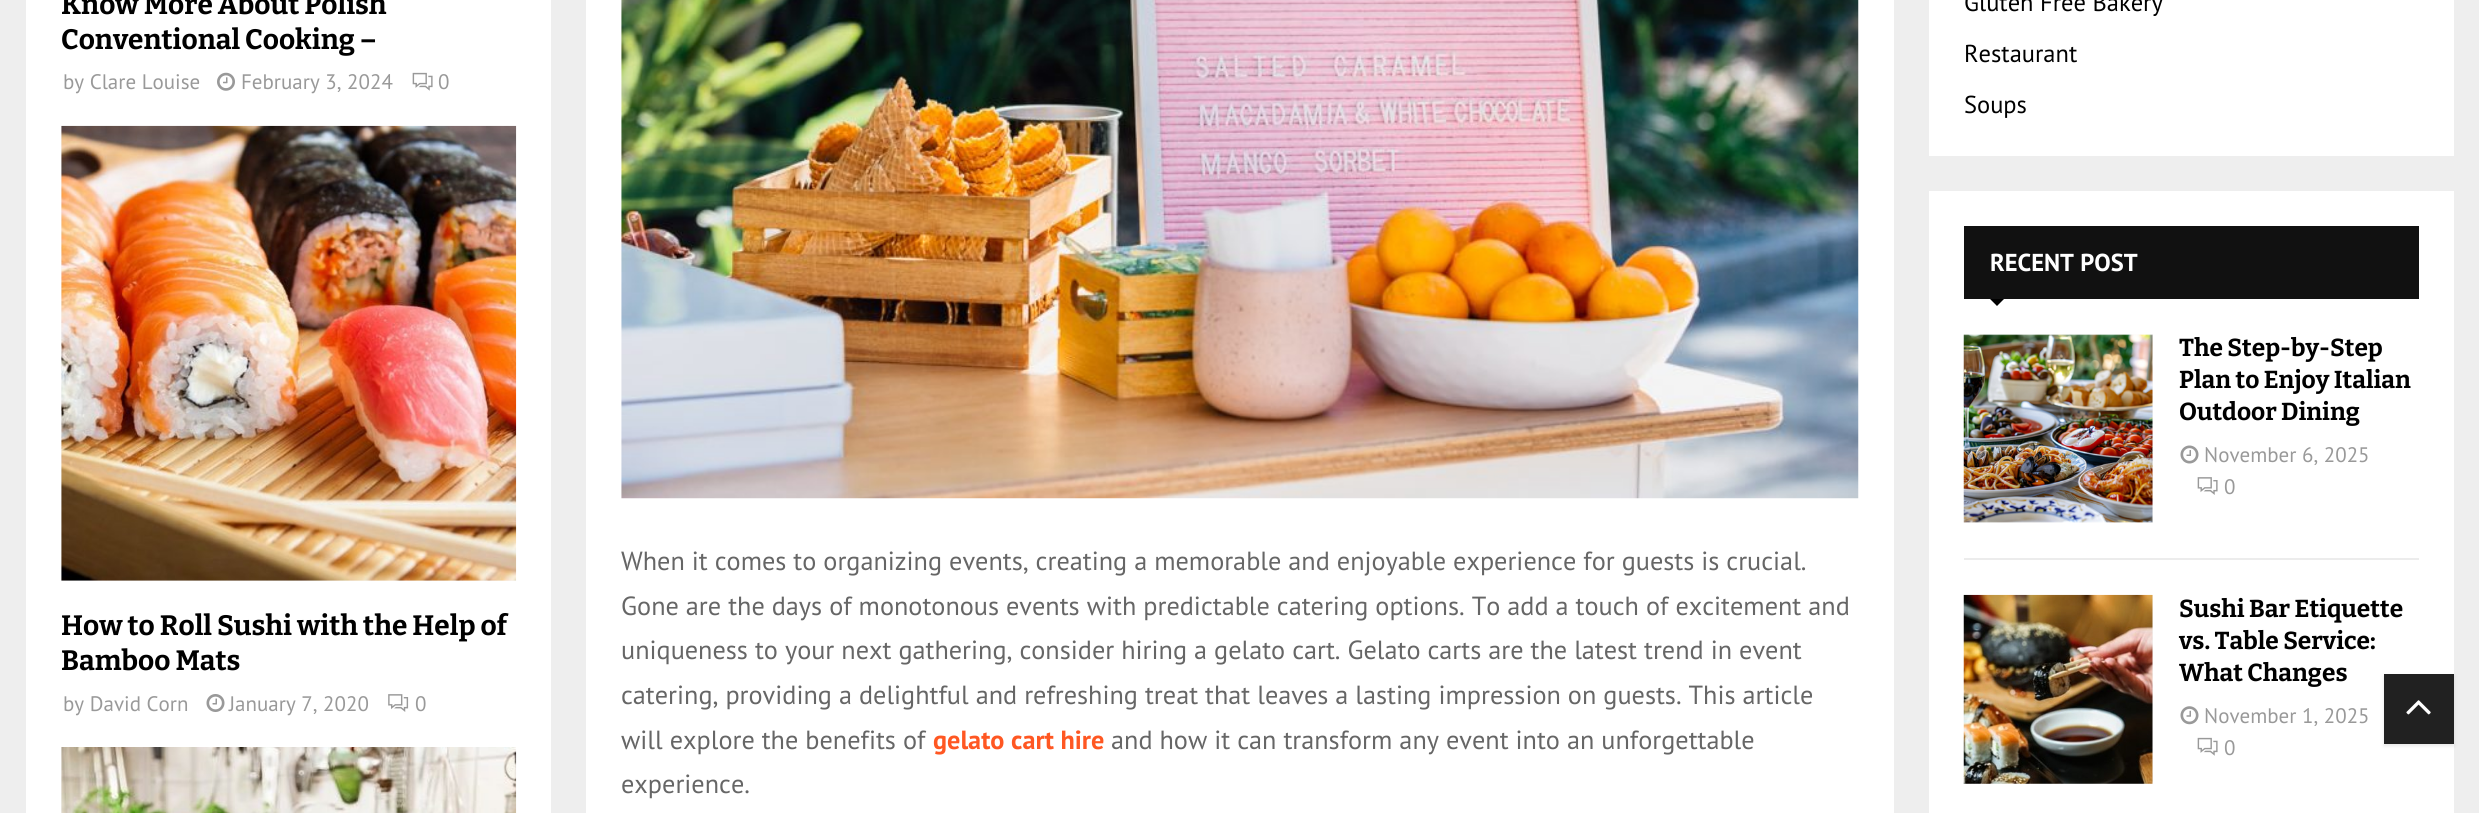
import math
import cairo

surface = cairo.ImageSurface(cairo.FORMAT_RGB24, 2479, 813)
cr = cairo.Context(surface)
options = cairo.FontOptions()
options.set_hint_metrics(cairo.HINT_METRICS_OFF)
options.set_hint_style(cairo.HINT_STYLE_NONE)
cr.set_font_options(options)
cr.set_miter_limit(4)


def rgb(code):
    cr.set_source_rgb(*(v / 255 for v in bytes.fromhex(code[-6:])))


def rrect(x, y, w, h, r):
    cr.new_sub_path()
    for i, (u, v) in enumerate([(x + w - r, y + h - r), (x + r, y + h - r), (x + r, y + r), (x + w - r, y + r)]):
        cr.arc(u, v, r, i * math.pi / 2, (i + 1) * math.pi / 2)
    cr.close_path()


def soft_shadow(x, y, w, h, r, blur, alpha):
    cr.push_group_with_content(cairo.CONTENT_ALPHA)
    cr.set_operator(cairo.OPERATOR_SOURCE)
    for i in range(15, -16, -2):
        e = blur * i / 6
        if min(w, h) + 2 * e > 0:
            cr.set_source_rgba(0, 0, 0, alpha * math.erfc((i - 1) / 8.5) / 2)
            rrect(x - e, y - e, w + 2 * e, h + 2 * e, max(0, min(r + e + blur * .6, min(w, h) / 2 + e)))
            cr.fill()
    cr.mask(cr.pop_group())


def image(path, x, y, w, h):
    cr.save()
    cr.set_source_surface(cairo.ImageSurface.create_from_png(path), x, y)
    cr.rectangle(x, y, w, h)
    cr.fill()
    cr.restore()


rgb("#eeeeee")
cr.paint()
rgb("#ffffff")
cr.rectangle(26, 0, 525, 813)
cr.fill()
image("img/1.png", 217, 72, 18, 19)
image("img/2.png", 412, 72, 21, 19)
rgb("#f5f5f5")
cr.rectangle(61, 126, 455, 455)
cr.fill()
image("img/3.png", 61, 125, 456, 456)
image("img/4.png", 206, 694, 19, 18)
image("img/5.png", 388, 694, 21, 18)
cr.rectangle(61, 747, 1, 66)
cr.fill()
image("img/6.png", 61, 747, 456, 66)
rgb("#ffffff")
cr.rectangle(586, 0, 1308, 813)
cr.fill()
image("img/7.png", 621, 0, 1238, 499)
for x, y, w, h, color in [
    (1929, 0, 525, 156, "#ffffff"),
    (1929, 191, 525, 622, "#ffffff"),
    (1964, 226, 455, 73, "#111111"),
]:
    rgb(color)
    cr.rectangle(x, y, w, h)
    cr.fill()
rgb("#000000")
cr.new_path()
cr.move_to(1990, 299)
cr.line_to(2004, 299)
cr.line_to(1997, 306)
cr.close_path()
cr.fill()
rgb("#ececec")
cr.rectangle(1964, 558, 455, 2)
cr.fill()
rgb("#f5f5f5")
cr.rectangle(2152, 334, 1, 189)
cr.fill()
image("img/8.png", 1963, 334, 190, 189)
image("img/9.png", 2180, 445, 19, 19)
image("img/10.png", 2197, 477, 21, 18)
cr.rectangle(1964, 595, 189, 189)
cr.fill()
image("img/11.png", 1963, 594, 190, 190)
image("img/12.png", 2180, 706, 19, 19)
image("img/2.png", 2197, 737, 21, 19)
rgb("#000000")
soft_shadow(2384, 676, 70, 70, 0, 2, 0.1)
rgb("#212121")
cr.rectangle(2384, 674, 70, 70)
cr.fill()
image("img/13.png", 2406, 700, 25, 15)
cr.select_font_face("Bitter", cairo.FONT_SLANT_NORMAL, cairo.FONT_WEIGHT_BOLD)
cr.set_font_size(28)
rgb("#000000")
cr.move_to(61, 14)
cr.show_text("Know More About Polish")
cr.move_to(61, 49)
cr.show_text("Conventional Cooking –")
cr.select_font_face("PT Sans")
cr.set_font_size(21)
rgb("#999999")
for x, y, s in [
    (63, 89, "by Clare Louise"),
    (241, 89, "February 3, 2024"),
    (438, 89, "0"),
]:
    cr.move_to(x, y)
    cr.show_text(s)
cr.select_font_face("Bitter", cairo.FONT_SLANT_NORMAL, cairo.FONT_WEIGHT_BOLD)
cr.set_font_size(28)
rgb("#000000")
cr.move_to(61, 635)
cr.show_text("How to Roll Sushi with the Help of")
cr.move_to(61, 670)
cr.show_text("Bamboo Mats")
cr.select_font_face("PT Sans")
cr.set_font_size(21)
rgb("#999999")
for x, y, s in [
    (63, 711, "by David Corn"),
    (229, 711, "January 7, 2020"),
    (415, 711, "0"),
]:
    cr.move_to(x, y)
    cr.show_text(s)
cr.set_font_size(26.25)
rgb("#666666")
for x, y, s in [
    (621, 570, "When it comes to organizing events, creating a memorable and enjoyable experience for guests is crucial."),
    (621, 615, "Gone are the days of monotonous events with predictable catering options. To add a touch of excitement and"),
    (621, 659, "uniqueness to your next gathering, consider hiring a gelato cart. Gelato carts are the latest trend in event"),
    (621, 704, "catering, providing a delightful and refreshing treat that leaves a lasting impression on guests. This article"),
    (621, 749, "will explore the benefits of"),
]:
    cr.move_to(x, y)
    cr.show_text(s)
cr.select_font_face("PT Sans", cairo.FONT_SLANT_NORMAL, cairo.FONT_WEIGHT_BOLD)
rgb("#ff5722")
cr.move_to(933, 749)
cr.show_text("gelato cart hire")
cr.select_font_face("PT Sans")
rgb("#666666")
cr.move_to(1111, 749)
cr.show_text("and how it can transform any event into an unforgettable")
cr.move_to(621, 793)
cr.show_text("experience.")
cr.set_font_size(24.5)
rgb("#000000")
for x, y, s in [
    (1964, 11, "Gluten Free Bakery"),
    (1964, 62, "Restaurant"),
    (1964, 113, "Soups"),
]:
    cr.move_to(x, y)
    cr.show_text(s)
cr.select_font_face("PT Sans", cairo.FONT_SLANT_NORMAL, cairo.FONT_WEIGHT_BOLD)
rgb("#ffffff")
cr.move_to(1990, 271)
cr.show_text("RECENT POST")
cr.select_font_face("Bitter", cairo.FONT_SLANT_NORMAL, cairo.FONT_WEIGHT_BOLD)
rgb("#000000")
for x, y, s in [
    (2179, 356, "The Step-by-Step"),
    (2179, 388, "Plan to Enjoy Italian"),
    (2179, 420, "Outdoor Dining"),
]:
    cr.move_to(x, y)
    cr.show_text(s)
cr.select_font_face("PT Sans")
cr.set_font_size(21)
rgb("#999999")
cr.move_to(2204, 462)
cr.show_text("November 6, 2025")
cr.move_to(2224, 494)
cr.show_text("0")
cr.select_font_face("Bitter", cairo.FONT_SLANT_NORMAL, cairo.FONT_WEIGHT_BOLD)
cr.set_font_size(24.5)
rgb("#000000")
for x, y, s in [
    (2179, 617, "Sushi Bar Etiquette"),
    (2179, 649, "vs. Table Service:"),
    (2179, 681, "What Changes"),
]:
    cr.move_to(x, y)
    cr.show_text(s)
cr.select_font_face("PT Sans")
cr.set_font_size(21)
rgb("#999999")
cr.move_to(2204, 723)
cr.show_text("November 1, 2025")
cr.move_to(2224, 755)
cr.show_text("0")
surface.write_to_png("page.png")
